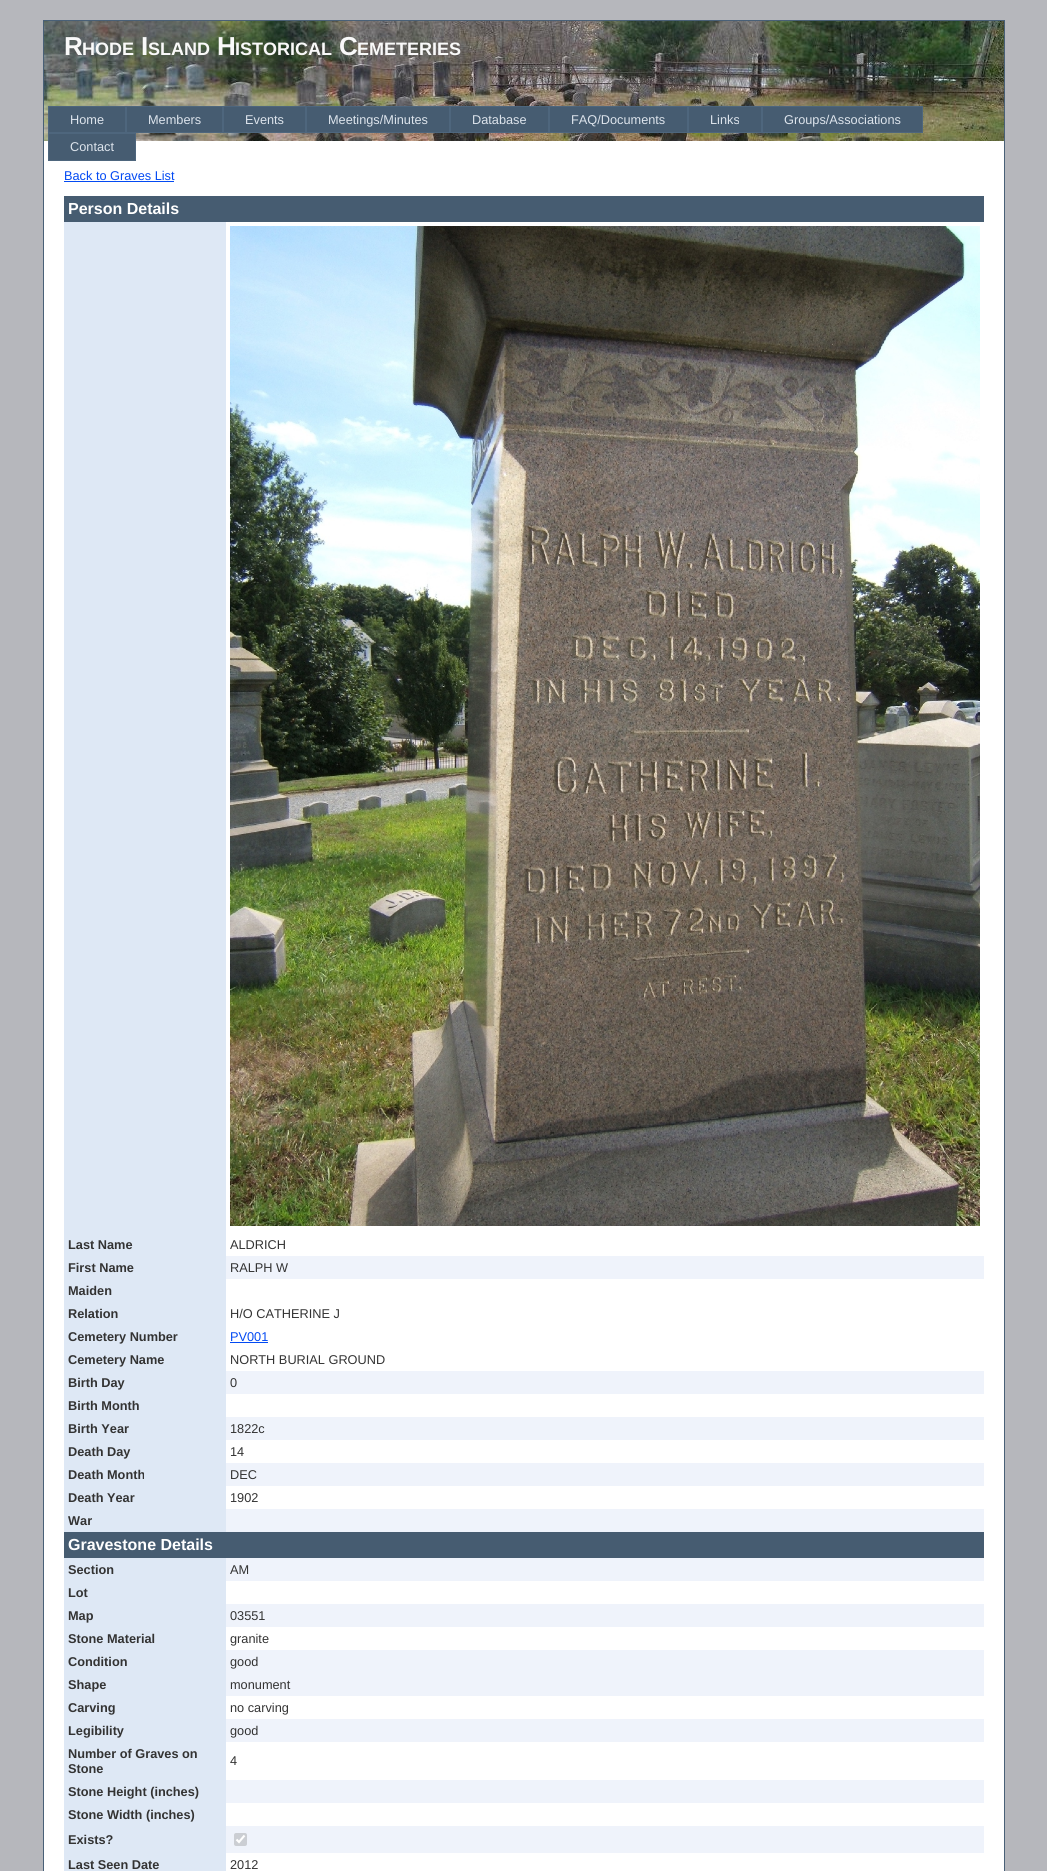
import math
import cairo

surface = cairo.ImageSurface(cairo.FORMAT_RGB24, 1047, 1871)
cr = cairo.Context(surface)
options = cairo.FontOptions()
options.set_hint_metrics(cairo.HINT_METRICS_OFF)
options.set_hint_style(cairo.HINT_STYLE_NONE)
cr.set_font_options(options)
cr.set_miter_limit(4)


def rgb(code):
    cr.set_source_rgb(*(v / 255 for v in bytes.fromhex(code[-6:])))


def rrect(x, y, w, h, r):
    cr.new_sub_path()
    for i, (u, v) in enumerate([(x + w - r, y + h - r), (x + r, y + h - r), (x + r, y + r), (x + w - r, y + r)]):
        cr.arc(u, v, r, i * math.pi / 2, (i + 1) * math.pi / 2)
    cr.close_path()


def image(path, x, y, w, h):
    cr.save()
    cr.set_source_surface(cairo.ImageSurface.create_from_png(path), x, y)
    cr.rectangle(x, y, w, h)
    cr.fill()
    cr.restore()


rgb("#b6b7bc")
cr.paint()
rgb("#ffffff")
cr.rectangle(44, 141, 960, 1730)
cr.fill()
cr.rectangle(43.5, 20.5, 961, 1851)
rgb("#496077")
cr.set_line_width(1)
cr.stroke()
image("img/1.png", 44, 21, 960, 120)
rgb("#465c71")
cr.rectangle(48.5, 106.5, 77, 26)
cr.fill_preserve()
rgb("#4e667d")
cr.stroke()
rgb("#465c71")
cr.rectangle(126.5, 106.5, 96, 26)
cr.fill_preserve()
rgb("#4e667d")
cr.stroke()
rgb("#465c71")
cr.rectangle(223.5, 106.5, 82, 26)
cr.fill_preserve()
rgb("#4e667d")
cr.stroke()
rgb("#465c71")
cr.rectangle(306.5, 106.5, 143, 26)
cr.fill_preserve()
rgb("#4e667d")
cr.stroke()
rgb("#465c71")
cr.rectangle(450.5, 106.5, 98, 26)
cr.fill_preserve()
rgb("#4e667d")
cr.stroke()
rgb("#465c71")
cr.rectangle(549.5, 106.5, 138, 26)
cr.fill_preserve()
rgb("#4e667d")
cr.stroke()
rgb("#465c71")
cr.rectangle(688.5, 106.5, 73, 26)
cr.fill_preserve()
rgb("#4e667d")
cr.stroke()
rgb("#465c71")
cr.rectangle(762.5, 106.5, 160, 26)
cr.fill_preserve()
rgb("#4e667d")
cr.stroke()
rgb("#465c71")
cr.rectangle(48.5, 133.5, 87, 27)
cr.fill_preserve()
rgb("#4e667d")
cr.stroke()
for x, y, w, h, color in [
    (64, 181, 110, 1, "#034af3"),
    (64, 196, 920, 26, "#465c71"),
    (64, 222, 162, 1310, "#dee8f5"),
]:
    rgb(color)
    cr.rectangle(x, y, w, h)
    cr.fill()
image("img/2.png", 230, 226, 750, 1000)
for x, y, w, h, color in [
    (226, 1256, 758, 23, "#eff3fb"),
    (230, 1342, 38, 1, "#034af3"),
    (226, 1371, 758, 23, "#eff3fb"),
    (226, 1417, 758, 23, "#eff3fb"),
    (226, 1463, 758, 23, "#eff3fb"),
    (226, 1509, 758, 23, "#eff3fb"),
    (64, 1532, 920, 26, "#465c71"),
    (226, 1558, 758, 23, "#eff3fb"),
    (64, 1558, 162, 313, "#dee8f5"),
    (226, 1604, 758, 23, "#eff3fb"),
    (226, 1650, 758, 46, "#eff3fb"),
    (226, 1719, 758, 23, "#eff3fb"),
    (226, 1780, 758, 23, "#eff3fb"),
    (226, 1826, 758, 27, "#eff3fb"),
]:
    rgb(color)
    cr.rectangle(x, y, w, h)
    cr.fill()
rgb("#cbced3")
rrect(234, 1833, 13, 13, 2)
cr.fill()
cr.new_path()
cr.move_to(236.5, 1839.5)
cr.line_to(239, 1842)
cr.line_to(244.5, 1835.5)
rgb("#ffffff")
cr.set_line_width(2.1)
cr.stroke()
cr.select_font_face("Liberation Sans", cairo.FONT_SLANT_NORMAL, cairo.FONT_WEIGHT_BOLD)
cr.set_font_size(26)
rgb("#f9f9f9")
cr.move_to(64, 55)
cr.show_text("R")
cr.set_font_size(18)
cr.move_to(82, 55)
cr.show_text("HODE")
cr.set_font_size(26)
cr.move_to(141, 55)
cr.show_text("I")
cr.set_font_size(18)
cr.move_to(148, 55)
cr.show_text("SLAND")
cr.set_font_size(26)
cr.move_to(217, 55)
cr.show_text("H")
cr.set_font_size(18)
cr.move_to(235, 55)
cr.show_text("ISTORICAL")
cr.set_font_size(26)
cr.move_to(339, 55)
cr.show_text("C")
cr.set_font_size(18)
cr.move_to(357, 55)
cr.show_text("EMETERIES")
cr.select_font_face("Liberation Sans")
cr.set_font_size(12.75)
rgb("#dde4ec")
for x, y, s in [
    (70, 124, "Home"),
    (148, 124, "Members"),
    (245, 124, "Events"),
    (328, 124, "Meetings/Minutes"),
    (472, 124, "Database"),
    (571, 124, "FAQ/Documents"),
    (710, 124, "Links"),
    (784, 124, "Groups/Associations"),
    (70, 151, "Contact"),
]:
    cr.move_to(x, y)
    cr.show_text(s)
rgb("#034af3")
cr.move_to(64, 180)
cr.show_text("Back to Graves List")
cr.select_font_face("Liberation Sans", cairo.FONT_SLANT_NORMAL, cairo.FONT_WEIGHT_BOLD)
cr.set_font_size(16)
rgb("#ffffff")
cr.move_to(68, 214)
cr.show_text("Person Details")
cr.set_font_size(12.75)
rgb("#333333")
cr.move_to(68, 1249)
cr.show_text("Last Name")
cr.select_font_face("Liberation Sans")
cr.move_to(230, 1249)
cr.show_text("ALDRICH")
cr.select_font_face("Liberation Sans", cairo.FONT_SLANT_NORMAL, cairo.FONT_WEIGHT_BOLD)
cr.move_to(68, 1272)
cr.show_text("First Name")
cr.select_font_face("Liberation Sans")
cr.move_to(230, 1272)
cr.show_text("RALPH W")
cr.select_font_face("Liberation Sans", cairo.FONT_SLANT_NORMAL, cairo.FONT_WEIGHT_BOLD)
cr.move_to(68, 1295)
cr.show_text("Maiden")
cr.move_to(68, 1318)
cr.show_text("Relation")
cr.select_font_face("Liberation Sans")
cr.move_to(230, 1318)
cr.show_text("H/O CATHERINE J")
cr.select_font_face("Liberation Sans", cairo.FONT_SLANT_NORMAL, cairo.FONT_WEIGHT_BOLD)
cr.move_to(68, 1341)
cr.show_text("Cemetery Number")
cr.select_font_face("Liberation Sans")
rgb("#034af3")
cr.move_to(230, 1341)
cr.show_text("PV001")
cr.select_font_face("Liberation Sans", cairo.FONT_SLANT_NORMAL, cairo.FONT_WEIGHT_BOLD)
rgb("#333333")
cr.move_to(68, 1364)
cr.show_text("Cemetery Name")
cr.select_font_face("Liberation Sans")
cr.move_to(230, 1364)
cr.show_text("NORTH BURIAL GROUND")
cr.select_font_face("Liberation Sans", cairo.FONT_SLANT_NORMAL, cairo.FONT_WEIGHT_BOLD)
cr.move_to(68, 1387)
cr.show_text("Birth Day")
cr.select_font_face("Liberation Sans")
cr.move_to(230, 1387)
cr.show_text("0")
cr.select_font_face("Liberation Sans", cairo.FONT_SLANT_NORMAL, cairo.FONT_WEIGHT_BOLD)
cr.move_to(68, 1410)
cr.show_text("Birth Month")
cr.move_to(68, 1433)
cr.show_text("Birth Year")
cr.select_font_face("Liberation Sans")
cr.move_to(230, 1433)
cr.show_text("1822c")
cr.select_font_face("Liberation Sans", cairo.FONT_SLANT_NORMAL, cairo.FONT_WEIGHT_BOLD)
cr.move_to(68, 1456)
cr.show_text("Death Day")
cr.select_font_face("Liberation Sans")
cr.move_to(230, 1456)
cr.show_text("14")
cr.select_font_face("Liberation Sans", cairo.FONT_SLANT_NORMAL, cairo.FONT_WEIGHT_BOLD)
cr.move_to(68, 1479)
cr.show_text("Death Month")
cr.select_font_face("Liberation Sans")
cr.move_to(230, 1479)
cr.show_text("DEC")
cr.select_font_face("Liberation Sans", cairo.FONT_SLANT_NORMAL, cairo.FONT_WEIGHT_BOLD)
cr.move_to(68, 1502)
cr.show_text("Death Year")
cr.select_font_face("Liberation Sans")
cr.move_to(230, 1502)
cr.show_text("1902")
cr.select_font_face("Liberation Sans", cairo.FONT_SLANT_NORMAL, cairo.FONT_WEIGHT_BOLD)
cr.move_to(68, 1525)
cr.show_text("War")
cr.set_font_size(16)
rgb("#ffffff")
cr.move_to(68, 1550)
cr.show_text("Gravestone Details")
cr.set_font_size(12.75)
rgb("#333333")
cr.move_to(68, 1574)
cr.show_text("Section")
cr.select_font_face("Liberation Sans")
cr.move_to(230, 1574)
cr.show_text("AM")
cr.select_font_face("Liberation Sans", cairo.FONT_SLANT_NORMAL, cairo.FONT_WEIGHT_BOLD)
cr.move_to(68, 1597)
cr.show_text("Lot")
cr.move_to(68, 1620)
cr.show_text("Map")
cr.select_font_face("Liberation Sans")
cr.move_to(230, 1620)
cr.show_text("03551")
cr.select_font_face("Liberation Sans", cairo.FONT_SLANT_NORMAL, cairo.FONT_WEIGHT_BOLD)
cr.move_to(68, 1643)
cr.show_text("Stone Material")
cr.select_font_face("Liberation Sans")
cr.move_to(230, 1643)
cr.show_text("granite")
cr.select_font_face("Liberation Sans", cairo.FONT_SLANT_NORMAL, cairo.FONT_WEIGHT_BOLD)
cr.move_to(68, 1666)
cr.show_text("Condition")
cr.select_font_face("Liberation Sans")
cr.move_to(230, 1666)
cr.show_text("good")
cr.select_font_face("Liberation Sans", cairo.FONT_SLANT_NORMAL, cairo.FONT_WEIGHT_BOLD)
cr.move_to(68, 1689)
cr.show_text("Shape")
cr.select_font_face("Liberation Sans")
cr.move_to(230, 1689)
cr.show_text("monument")
cr.select_font_face("Liberation Sans", cairo.FONT_SLANT_NORMAL, cairo.FONT_WEIGHT_BOLD)
cr.move_to(68, 1712)
cr.show_text("Carving")
cr.select_font_face("Liberation Sans")
cr.move_to(230, 1712)
cr.show_text("no carving")
cr.select_font_face("Liberation Sans", cairo.FONT_SLANT_NORMAL, cairo.FONT_WEIGHT_BOLD)
cr.move_to(68, 1735)
cr.show_text("Legibility")
cr.select_font_face("Liberation Sans")
cr.move_to(230, 1735)
cr.show_text("good")
cr.select_font_face("Liberation Sans", cairo.FONT_SLANT_NORMAL, cairo.FONT_WEIGHT_BOLD)
cr.move_to(68, 1758)
cr.show_text("Number of Graves on")
cr.move_to(68, 1773)
cr.show_text("Stone")
cr.select_font_face("Liberation Sans")
cr.move_to(230, 1765)
cr.show_text("4")
cr.select_font_face("Liberation Sans", cairo.FONT_SLANT_NORMAL, cairo.FONT_WEIGHT_BOLD)
for x, y, s in [
    (68, 1796, "Stone Height (inches)"),
    (68, 1819, "Stone Width (inches)"),
    (68, 1844, "Exists?"),
    (68, 1869, "Last Seen Date"),
]:
    cr.move_to(x, y)
    cr.show_text(s)
cr.select_font_face("Liberation Sans")
cr.move_to(230, 1869)
cr.show_text("2012")
surface.write_to_png("page.png")
